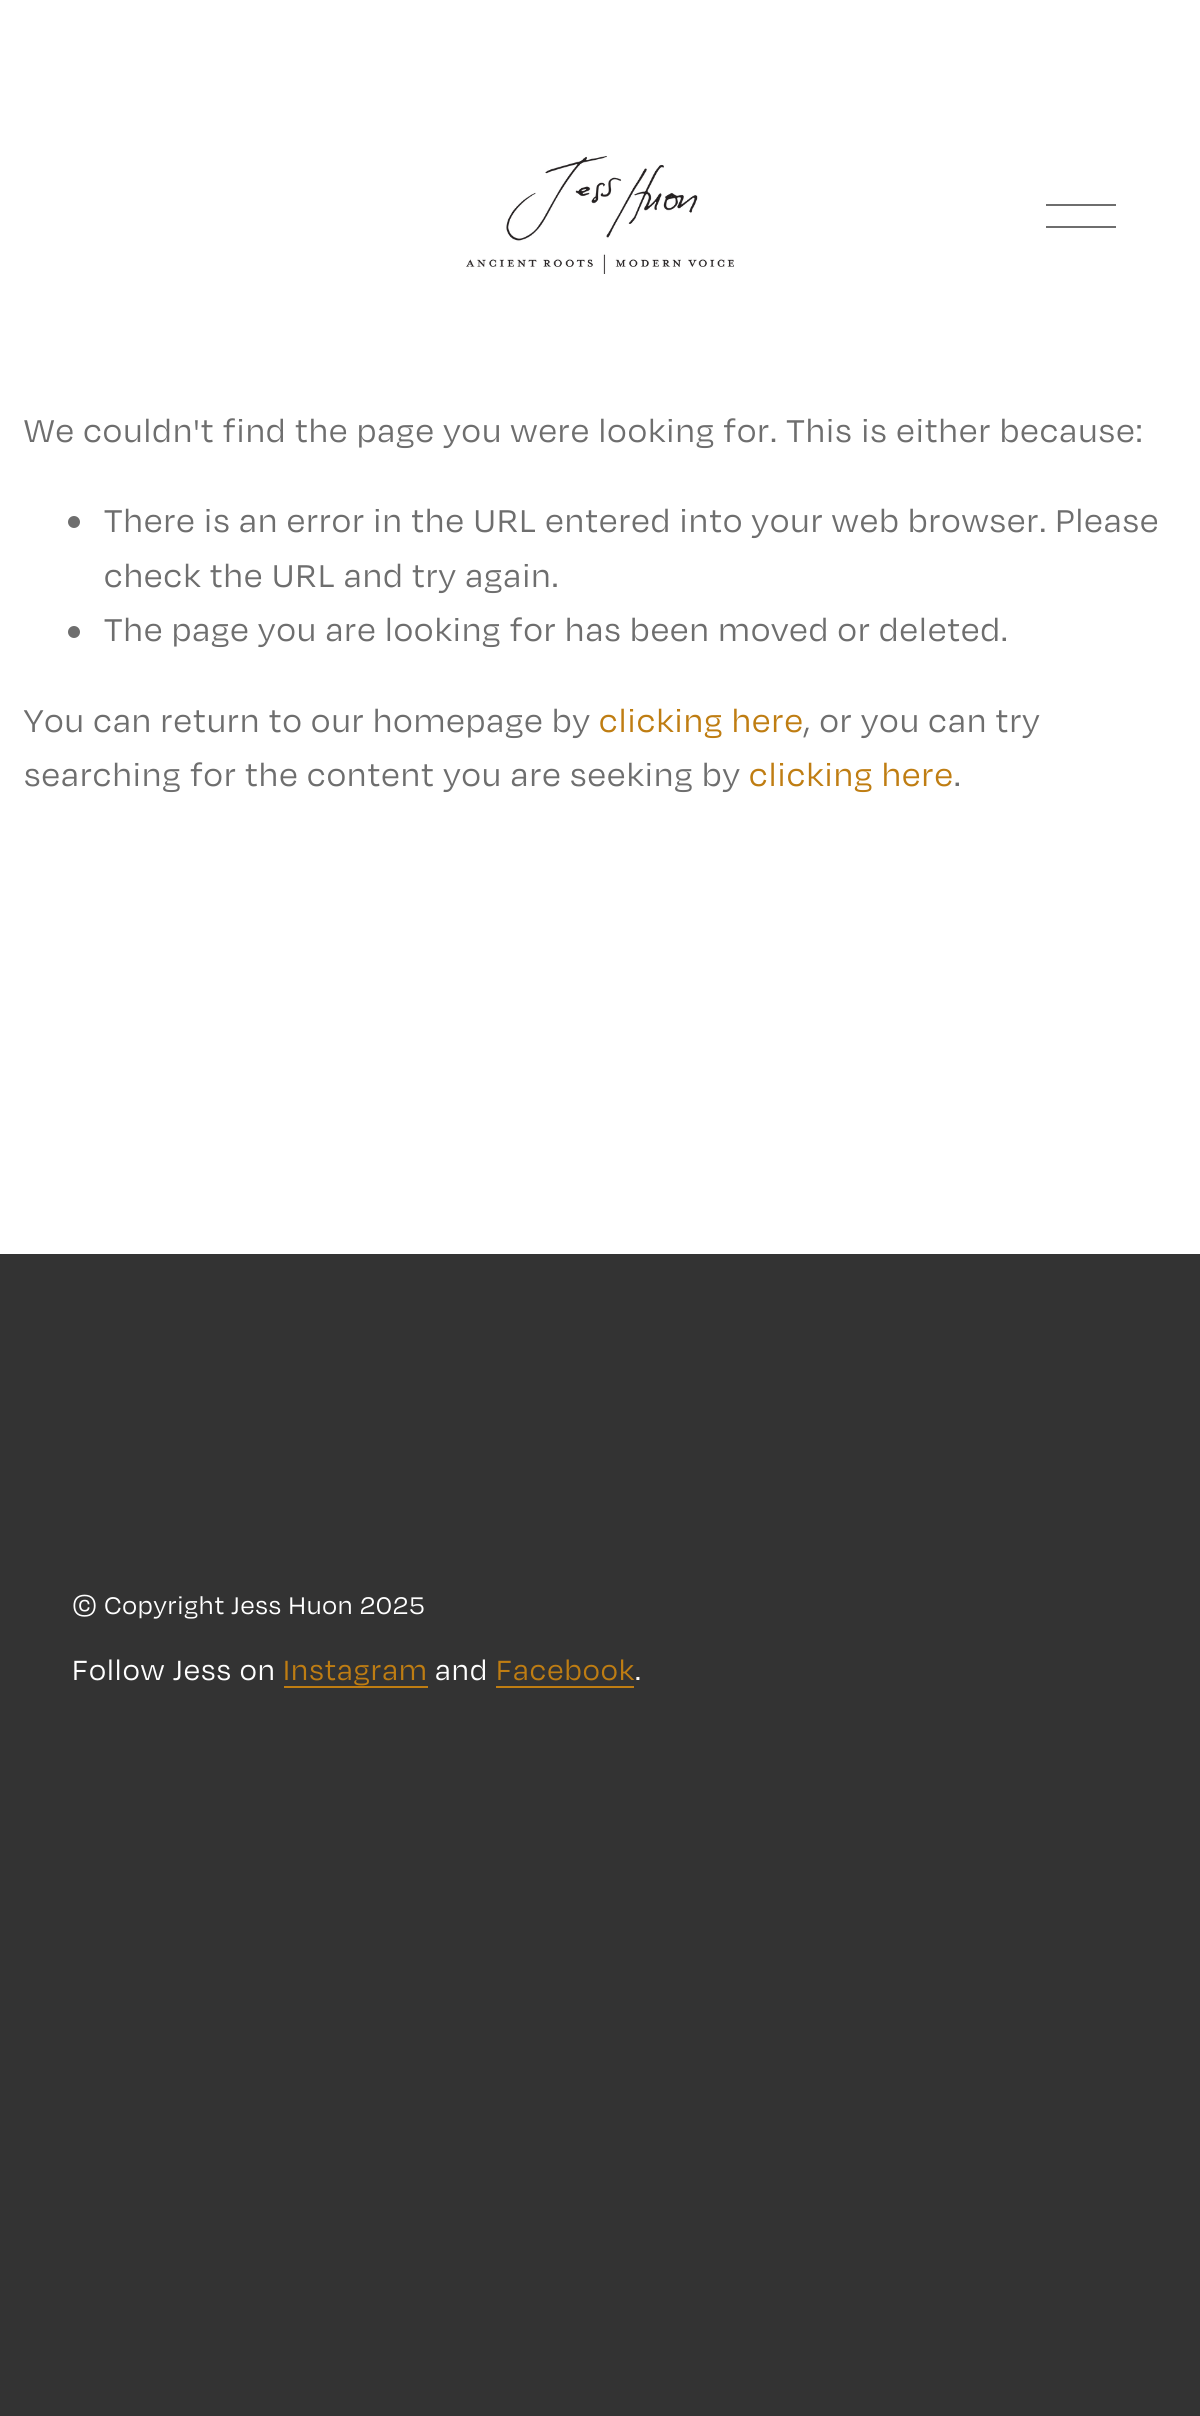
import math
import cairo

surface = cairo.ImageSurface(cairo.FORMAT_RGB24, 1200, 2416)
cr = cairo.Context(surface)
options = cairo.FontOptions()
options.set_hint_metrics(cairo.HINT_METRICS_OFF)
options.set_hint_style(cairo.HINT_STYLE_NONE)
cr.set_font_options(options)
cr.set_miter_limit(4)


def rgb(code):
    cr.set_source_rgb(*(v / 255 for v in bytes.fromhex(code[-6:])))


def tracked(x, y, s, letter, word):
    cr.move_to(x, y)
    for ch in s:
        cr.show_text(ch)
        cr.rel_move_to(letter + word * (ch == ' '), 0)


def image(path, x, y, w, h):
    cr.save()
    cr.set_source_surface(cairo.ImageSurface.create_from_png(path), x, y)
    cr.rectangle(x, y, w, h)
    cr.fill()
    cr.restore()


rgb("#ffffff")
cr.paint()
image("img/1.png", 466, 156, 268, 118)
rgb("#6e6e6e")
cr.rectangle(1046, 204, 70, 2)
cr.fill()
cr.rectangle(1046, 226, 70, 2)
cr.fill()
cr.arc(74, 522, 6, 0, 2 * math.pi)
cr.fill()
cr.arc(74, 632, 6, 0, 2 * math.pi)
cr.fill()
for x, y, w, h, color in [
    (0, 1254, 1200, 1162, "#333333"),
    (284, 1686, 144, 2, "#bf7d12"),
    (496, 1686, 138, 2, "#bf7d12"),
]:
    rgb(color)
    cr.rectangle(x, y, w, h)
    cr.fill()
cr.select_font_face("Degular")
cr.set_font_size(36.3)
rgb("#6e6e6e")
for x, y, s in [
    (24, 442, "We couldn't find the page you were looking for. This is either because:"),
    (104, 532, "There is an error in the URL entered into your web browser. Please"),
    (104, 587, "check the URL and try again."),
    (104, 641, "The page you are looking for has been moved or deleted."),
    (24, 732, "You can return to our homepage by"),
]:
    tracked(x, y, s, 1.1, 0)
rgb("#bf7d12")
tracked(599, 732, "clicking here", 1.1, 0)
rgb("#6e6e6e")
tracked(804, 732, ", or you can try", 1.1, 0)
tracked(24, 786, "searching for the content you are seeking by", 1.1, 0)
rgb("#bf7d12")
tracked(749, 786, "clicking here", 1.1, 0)
rgb("#6e6e6e")
tracked(954, 786, ".", 1.1, 0)
cr.set_font_size(27.75)
rgb("#ffffff")
tracked(72, 1614, "© Copyright Jess Huon 2025", 0.8, 0)
cr.set_font_size(32)
tracked(72, 1680, "Follow Jess on", 1.1, 0)
rgb("#bf7d12")
tracked(283, 1680, "Instagram", 1.1, 0)
rgb("#ffffff")
tracked(435, 1680, "and", 1.1, 0)
rgb("#bf7d12")
tracked(496, 1680, "Facebook", 1.1, 0)
rgb("#ffffff")
tracked(635, 1680, ".", 1.1, 0)
surface.write_to_png("page.png")
